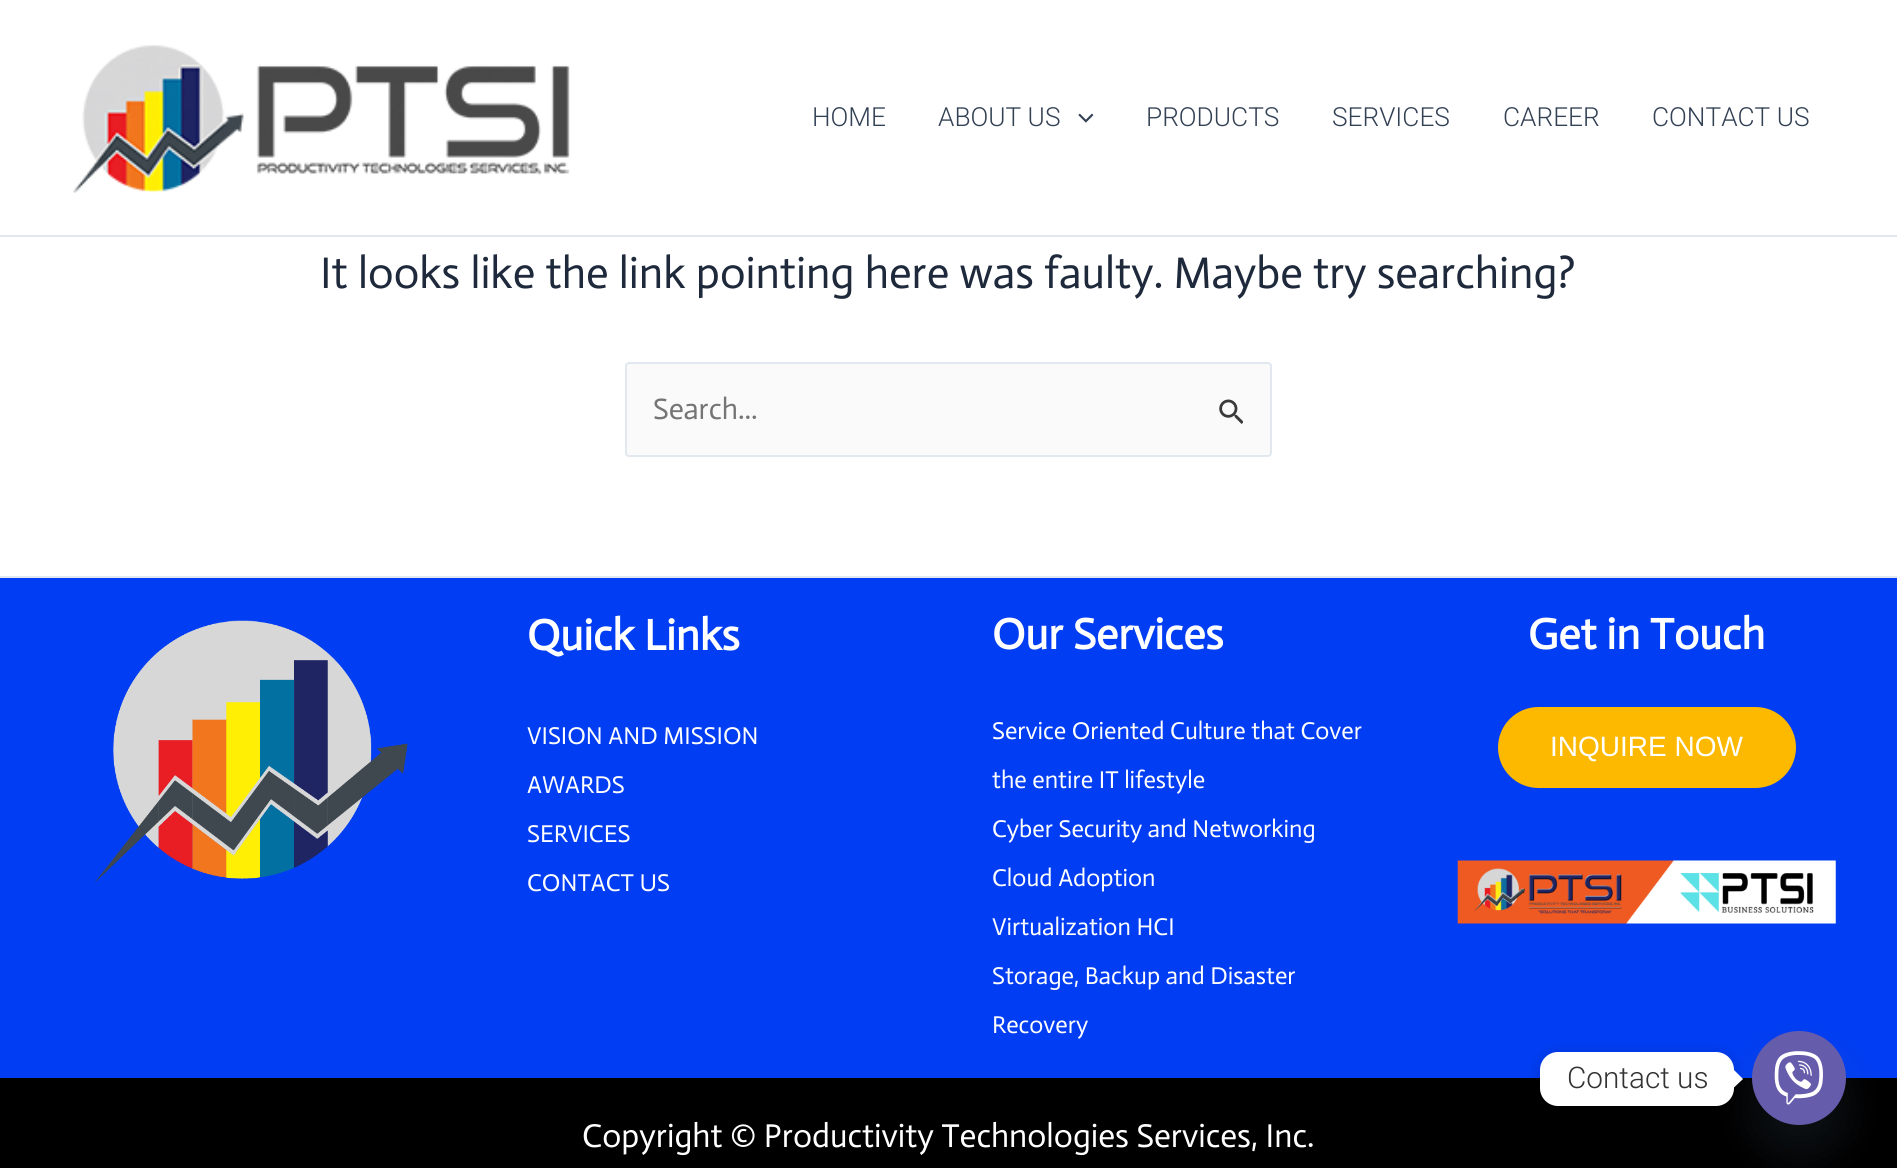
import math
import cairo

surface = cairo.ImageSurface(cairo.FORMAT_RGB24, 1897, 1168)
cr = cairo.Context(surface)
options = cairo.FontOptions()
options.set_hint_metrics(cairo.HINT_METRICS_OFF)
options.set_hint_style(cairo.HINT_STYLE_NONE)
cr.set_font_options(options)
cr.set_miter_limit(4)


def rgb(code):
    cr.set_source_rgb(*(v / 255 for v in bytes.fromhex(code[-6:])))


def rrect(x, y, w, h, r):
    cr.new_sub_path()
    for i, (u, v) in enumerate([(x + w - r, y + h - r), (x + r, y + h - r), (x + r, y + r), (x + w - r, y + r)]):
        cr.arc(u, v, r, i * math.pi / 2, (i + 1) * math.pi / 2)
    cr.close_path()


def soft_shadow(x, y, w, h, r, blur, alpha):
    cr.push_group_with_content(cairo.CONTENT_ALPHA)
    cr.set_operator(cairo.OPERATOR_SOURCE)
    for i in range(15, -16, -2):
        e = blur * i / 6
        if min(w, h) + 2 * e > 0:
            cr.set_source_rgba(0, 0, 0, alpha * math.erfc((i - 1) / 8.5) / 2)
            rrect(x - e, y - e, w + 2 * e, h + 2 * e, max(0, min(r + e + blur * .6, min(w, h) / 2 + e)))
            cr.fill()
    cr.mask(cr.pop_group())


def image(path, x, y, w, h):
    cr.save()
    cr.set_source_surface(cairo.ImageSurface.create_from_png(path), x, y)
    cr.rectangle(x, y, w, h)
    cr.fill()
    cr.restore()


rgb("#ffffff")
cr.paint()
rgb("#e2e8f0")
cr.rectangle(0, 235, 1897, 2)
cr.fill()
image("img/1.png", 73, 45, 497, 148)
image("img/2.png", 1078, 113, 16, 10)
rgb("#fafafa")
rrect(626, 363, 645, 93, 3)
cr.fill_preserve()
rgb("#e2e8f0")
cr.stroke()
image("img/3.png", 1219, 399, 24, 25)
gradient = cairo.LinearGradient(-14, 658, 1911, 997)
gradient.add_color_stop_rgba(0, 0.467, 0.6, 1, 1)
gradient.add_color_stop_rgba(0, 0.004, 0.239, 0.949, 1)
cr.set_source(gradient)
cr.rectangle(0, 578, 1897, 500)
cr.fill()
rgb("#e2e8f0")
cr.rectangle(0, 576, 1897, 2)
cr.fill()
image("img/4.png", 95, 620, 313, 263)
rgb("#fcb900")
rrect(1498, 707, 298, 81, 40.5)
cr.fill()
image("img/5.png", 1457, 860, 379, 64)
rgb("#000000")
cr.rectangle(0, 1078, 1897, 90)
cr.fill()
rgb("#49687e")
soft_shadow(1752, 1059, 94, 94, 47, 21, 0.16)
image("img/6.png", 1752, 1031, 94, 94)
rgb("#000000")
soft_shadow(1540, 1054, 194, 54, 18, 7, 0.15)
rgb("#ffffff")
rrect(1540, 1052, 194, 54, 18)
cr.fill()
cr.new_path()
cr.move_to(1734, 1087.5)
cr.line_to(1734, 1070)
cr.line_to(1743, 1079)
cr.close_path()
cr.fill()
cr.select_font_face("Roboto Light")
cr.set_font_size(26.25)
rgb("#334155")
for x, y, s in [
    (812, 126, "HOME"),
    (938, 126, "ABOUT US"),
    (1146, 126, "PRODUCTS"),
    (1332, 126, "SERVICES"),
    (1503, 126, "CAREER"),
    (1652, 126, "CONTACT US"),
]:
    cr.move_to(x, y)
    cr.show_text(s)
cr.select_font_face("Actor")
cr.set_font_size(44.6)
rgb("#1e293b")
cr.move_to(320, 288)
cr.show_text("It looks like the link pointing here was faulty. Maybe try searching?")
cr.set_font_size(29.75)
rgb("#757575")
cr.move_to(653, 419)
cr.show_text("Search...")
cr.select_font_face("Actor", cairo.FONT_SLANT_NORMAL, cairo.FONT_WEIGHT_BOLD)
cr.set_font_size(43.75)
rgb("#ffffff")
cr.move_to(527, 650)
cr.show_text("Quick Links")
cr.select_font_face("Actor")
cr.set_font_size(24.5)
for x, y, s in [
    (527, 744, "VISION AND MISSION"),
    (527, 793, "AWARDS"),
    (527, 842, "SERVICES"),
    (527, 891, "CONTACT US"),
]:
    cr.move_to(x, y)
    cr.show_text(s)
cr.select_font_face("Actor", cairo.FONT_SLANT_NORMAL, cairo.FONT_WEIGHT_BOLD)
cr.set_font_size(43.75)
cr.move_to(992, 649)
cr.show_text("Our Services")
cr.select_font_face("Actor")
cr.set_font_size(24.5)
for x, y, s in [
    (992, 739, "Service Oriented Culture that Cover"),
    (992, 788, "the entire IT lifestyle"),
    (992, 837, "Cyber Security and Networking"),
    (992, 886, "Cloud Adoption"),
    (992, 935, "Virtualization HCI"),
    (992, 984, "Storage, Backup and Disaster"),
    (992, 1033, "Recovery"),
]:
    cr.move_to(x, y)
    cr.show_text(s)
cr.select_font_face("Actor", cairo.FONT_SLANT_NORMAL, cairo.FONT_WEIGHT_BOLD)
cr.set_font_size(43.75)
cr.move_to(1528, 649)
cr.show_text("Get in Touch")
cr.select_font_face("Liberation Sans")
cr.set_font_size(28)
cr.move_to(1550, 756)
cr.show_text("INQUIRE NOW")
cr.select_font_face("Actor")
cr.set_font_size(33.25)
cr.move_to(582, 1147)
cr.show_text("Copyright © Productivity Technologies Services, Inc.")
cr.select_font_face("Roboto Light")
cr.set_font_size(29.75)
rgb("#333333")
cr.move_to(1567, 1088)
cr.show_text("Contact us")
surface.write_to_png("page.png")
